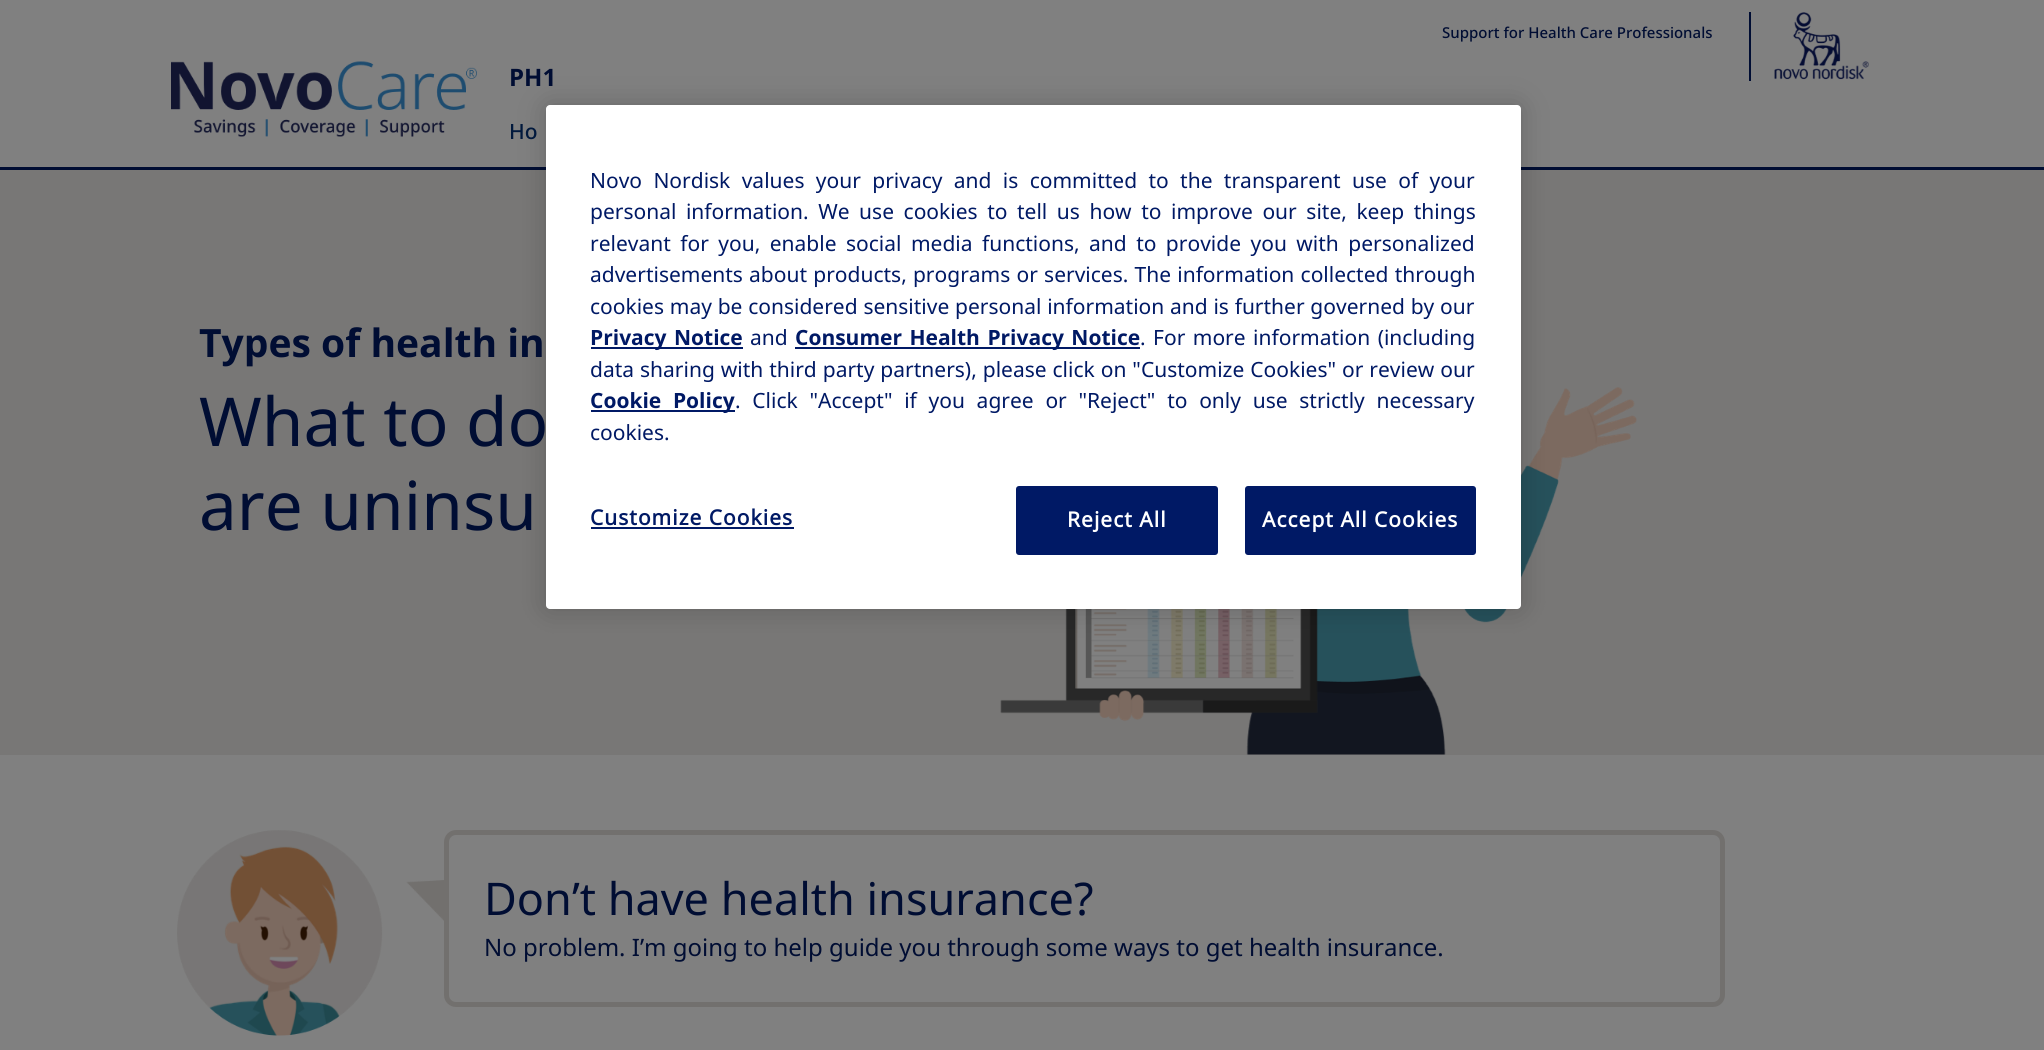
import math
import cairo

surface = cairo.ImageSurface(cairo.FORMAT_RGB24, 2044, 1050)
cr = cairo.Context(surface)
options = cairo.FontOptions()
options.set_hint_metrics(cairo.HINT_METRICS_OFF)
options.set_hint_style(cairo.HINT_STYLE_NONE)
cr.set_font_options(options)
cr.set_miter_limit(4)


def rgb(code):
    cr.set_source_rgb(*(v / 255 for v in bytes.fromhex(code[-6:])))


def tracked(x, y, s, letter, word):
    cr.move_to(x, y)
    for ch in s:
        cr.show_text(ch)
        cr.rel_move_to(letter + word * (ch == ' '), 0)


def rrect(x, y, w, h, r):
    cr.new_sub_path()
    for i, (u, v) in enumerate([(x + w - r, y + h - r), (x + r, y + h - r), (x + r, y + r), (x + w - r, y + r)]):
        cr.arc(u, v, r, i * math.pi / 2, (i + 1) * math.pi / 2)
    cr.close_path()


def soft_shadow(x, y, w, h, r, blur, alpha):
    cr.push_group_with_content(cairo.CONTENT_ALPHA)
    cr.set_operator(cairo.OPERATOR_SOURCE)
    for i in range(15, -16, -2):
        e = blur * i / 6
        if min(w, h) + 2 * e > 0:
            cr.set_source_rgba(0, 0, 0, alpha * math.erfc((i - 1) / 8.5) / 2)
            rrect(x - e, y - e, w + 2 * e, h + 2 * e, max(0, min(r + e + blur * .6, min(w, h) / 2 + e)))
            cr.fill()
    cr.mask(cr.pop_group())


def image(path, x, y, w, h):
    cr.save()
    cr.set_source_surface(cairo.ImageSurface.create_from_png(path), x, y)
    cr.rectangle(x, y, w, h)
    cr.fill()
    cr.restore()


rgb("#808080")
cr.paint()
rgb("#000d33")
cr.rectangle(0, 167, 2044, 3)
cr.fill()
cr.rectangle(1749, 12, 2, 69)
cr.fill()
image("img/1.png", 1774, 12, 95, 68)
image("img/2.png", 171, 61, 306, 76)
rgb("#787776")
cr.rectangle(0, 170, 2044, 585)
cr.fill()
image("img/3.png", 1000, 387, 637, 368)
image("img/4.png", 177, 830, 267, 206)
rrect(446.5, 832.5, 1276, 172, 9.5)
rgb("#72706e")
cr.set_line_width(5)
cr.stroke()
rgb("#000000")
soft_shadow(546, 105, 975, 504, 4, 13.5, 0.2)
rgb("#ffffff")
rrect(546, 105, 975, 504, 4)
cr.fill()
for x, y, w, h, color in [
    (591, 347, 152, 2, "#001965"),
    (795, 347, 345, 2, "#001965"),
    (591, 410, 144, 2, "#001965"),
    (591, 527, 203, 2, "#001965"),
]:
    rgb(color)
    cr.rectangle(x, y, w, h)
    cr.fill()
rrect(1017, 487, 200, 67, 2)
cr.fill_preserve()
cr.set_line_width(2)
cr.stroke()
rrect(1246, 487, 229, 67, 2)
cr.fill_preserve()
cr.stroke()
cr.select_font_face("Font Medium")
cr.set_font_size(15)
rgb("#000d33")
cr.move_to(1442, 38)
cr.show_text("Support for Health Care Professionals")
cr.select_font_face("Font", cairo.FONT_SLANT_NORMAL, cairo.FONT_WEIGHT_BOLD)
cr.set_font_size(24)
cr.move_to(509, 86)
cr.show_text("PH1")
cr.select_font_face("Font Medium")
cr.set_font_size(21)
rgb("#01193d")
cr.move_to(509, 139)
cr.show_text("Ho")
cr.select_font_face("Font", cairo.FONT_SLANT_NORMAL, cairo.FONT_WEIGHT_BOLD)
cr.set_font_size(39)
rgb("#000d33")
cr.move_to(199, 357)
cr.show_text("Types of health in")
cr.select_font_face("Font")
cr.set_font_size(67.5)
cr.move_to(199, 446)
cr.show_text("What to do")
cr.move_to(199, 530)
cr.show_text("are uninsu")
cr.set_font_size(45)
cr.move_to(484, 915)
cr.show_text("Don’t have health insurance?")
cr.set_font_size(24)
cr.move_to(484, 956)
cr.show_text("No problem. I’m going to help guide you through some ways to get health insurance.")
cr.set_font_size(21)
rgb("#001965")
tracked(590, 188, "Novo Nordisk values your privacy and is committed to the transparent use of your", 0, 5.9)
tracked(590, 219, "personal information. We use cookies to tell us how to improve our site, keep things", 0, 4.1)
tracked(590, 251, "relevant for you, enable social media functions, and to provide you with personalized", 0, 4)
tracked(590, 282, "advertisements about products, programs or services. The information collected through", 0, 0.75)
tracked(590, 314, "cookies may be considered sensitive personal information and is further governed by our", 0, 0.3)
cr.select_font_face("Font", cairo.FONT_SLANT_NORMAL, cairo.FONT_WEIGHT_BOLD)
tracked(590, 345, "Privacy Notice", 0, 2)
cr.select_font_face("Font")
cr.move_to(750, 345)
cr.show_text("and")
cr.select_font_face("Font", cairo.FONT_SLANT_NORMAL, cairo.FONT_WEIGHT_BOLD)
tracked(795, 345, "Consumer Health Privacy Notice", 0, 2)
cr.select_font_face("Font")
tracked(1140, 345, ". For more information (including", 0, 2)
tracked(590, 377, "data sharing with third party partners), please click on \"Customize Cookies\" or review our", 0, 0.5)
cr.select_font_face("Font", cairo.FONT_SLANT_NORMAL, cairo.FONT_WEIGHT_BOLD)
tracked(590, 408, "Cookie Policy", 0, 6.25)
cr.select_font_face("Font")
tracked(735, 408, ". Click \"Accept\" if you agree or \"Reject\" to only use strictly necessary", 0, 6.25)
cr.move_to(590, 440)
cr.show_text("cookies.")
cr.select_font_face("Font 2", cairo.FONT_SLANT_NORMAL, cairo.FONT_WEIGHT_BOLD)
tracked(590, 525, "Customize Cookies", 1, 0)
rgb("#ffffff")
tracked(1067, 527, "Reject All", 1, 0)
tracked(1262, 527, "Accept All Cookies", 1, 0)
surface.write_to_png("page.png")
